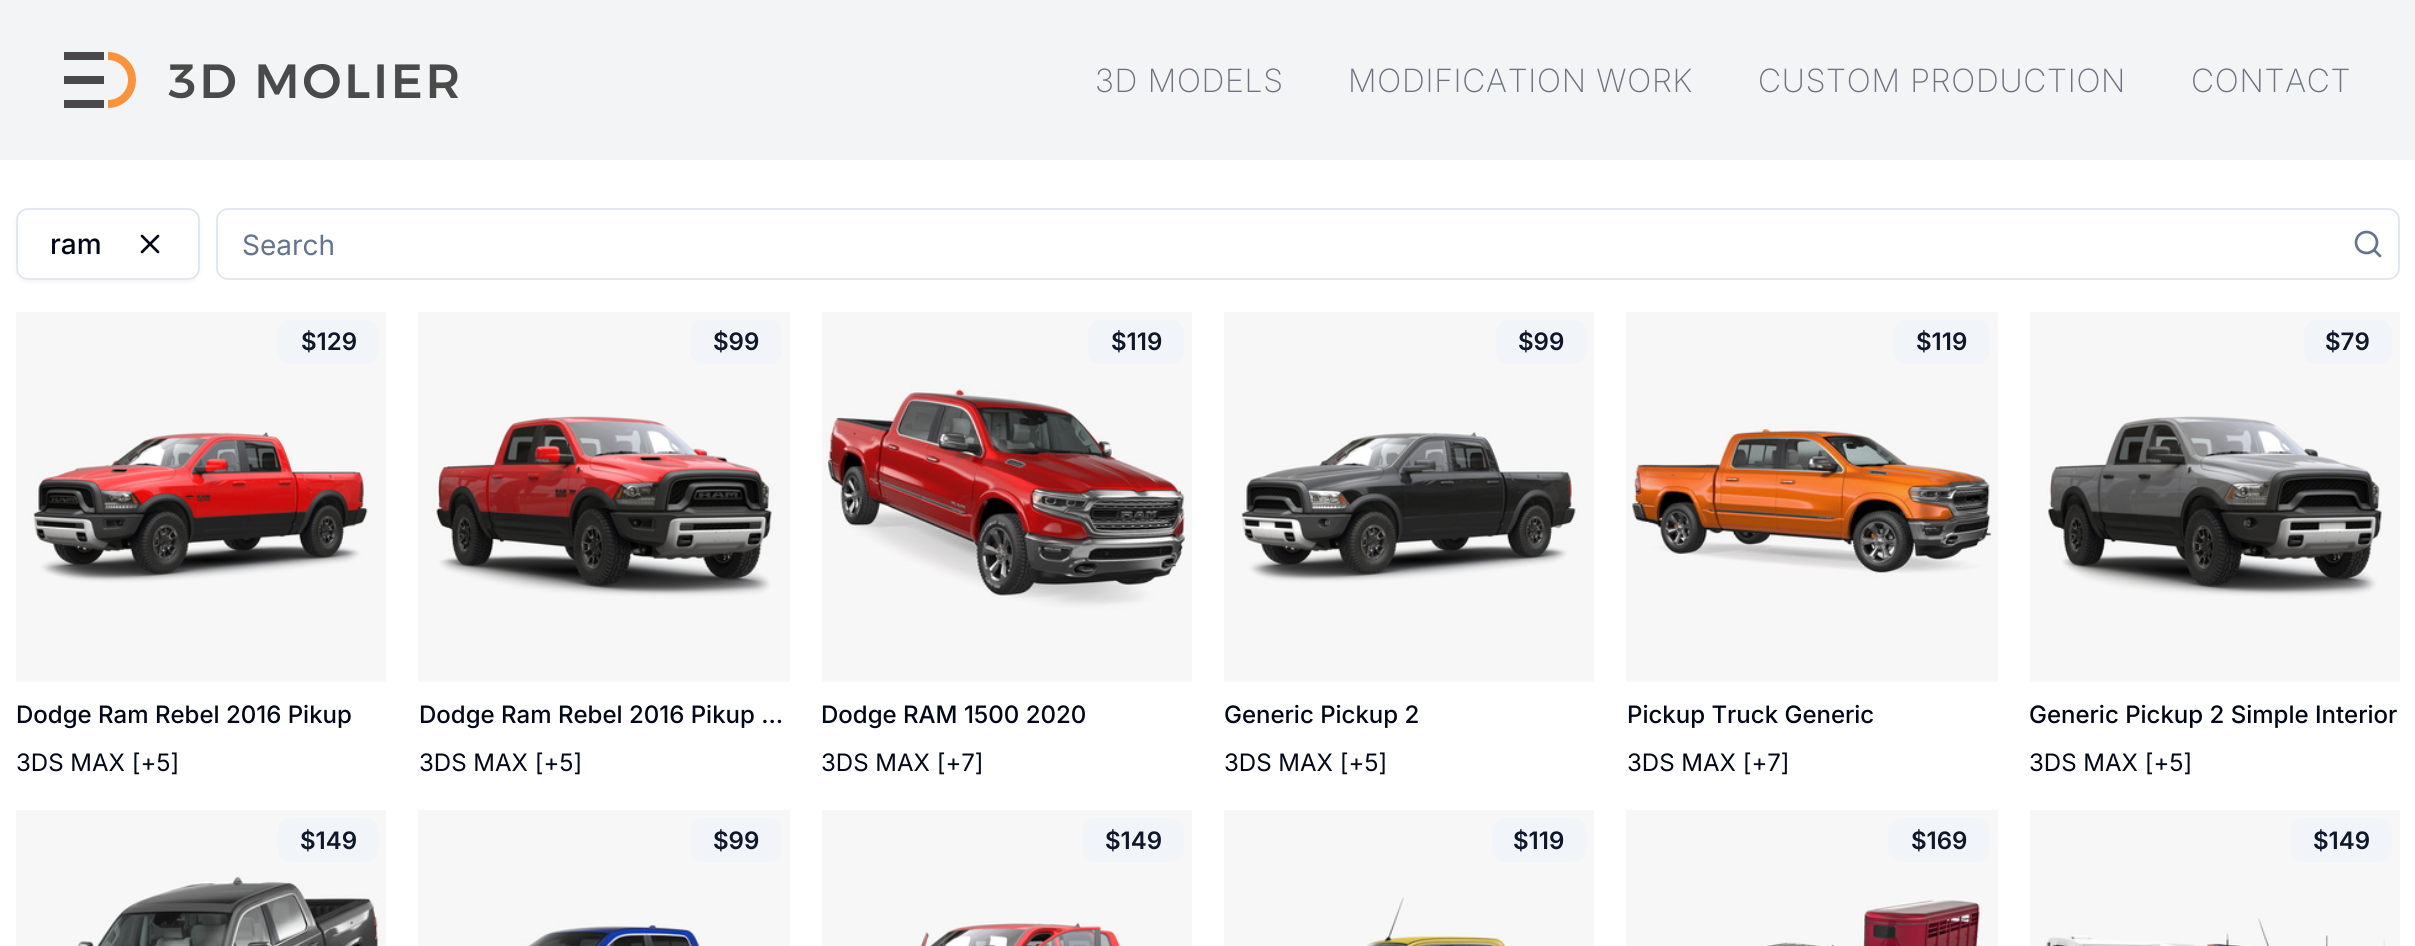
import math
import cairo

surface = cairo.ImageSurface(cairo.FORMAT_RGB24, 2415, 946)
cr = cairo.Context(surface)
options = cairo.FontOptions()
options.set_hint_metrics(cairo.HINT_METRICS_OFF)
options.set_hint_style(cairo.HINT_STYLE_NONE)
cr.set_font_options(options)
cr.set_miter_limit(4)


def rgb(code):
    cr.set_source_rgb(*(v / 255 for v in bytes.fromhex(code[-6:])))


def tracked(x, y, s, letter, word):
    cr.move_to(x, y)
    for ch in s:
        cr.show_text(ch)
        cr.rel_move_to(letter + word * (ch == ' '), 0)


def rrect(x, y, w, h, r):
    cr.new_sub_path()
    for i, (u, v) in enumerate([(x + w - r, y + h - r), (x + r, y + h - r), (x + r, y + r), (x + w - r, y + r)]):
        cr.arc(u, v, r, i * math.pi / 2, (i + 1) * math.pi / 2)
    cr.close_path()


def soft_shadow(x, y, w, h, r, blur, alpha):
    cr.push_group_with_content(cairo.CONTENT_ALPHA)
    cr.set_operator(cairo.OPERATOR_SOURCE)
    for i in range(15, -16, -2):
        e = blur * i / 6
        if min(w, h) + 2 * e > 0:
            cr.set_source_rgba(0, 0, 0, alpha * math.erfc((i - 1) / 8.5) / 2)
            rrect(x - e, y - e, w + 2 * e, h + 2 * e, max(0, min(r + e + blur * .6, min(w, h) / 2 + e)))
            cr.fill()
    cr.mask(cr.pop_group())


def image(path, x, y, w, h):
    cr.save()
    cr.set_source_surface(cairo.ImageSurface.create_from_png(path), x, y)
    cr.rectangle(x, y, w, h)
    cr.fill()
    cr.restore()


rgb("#ffffff")
cr.paint()
rgb("#f3f4f6")
cr.rectangle(0, 0, 2415, 160)
cr.fill()
image("img/1.png", 64, 52, 394, 56)
rgb("#000000")
soft_shadow(16, 210, 184, 72, 12, 2, 0.05)
rgb("#ffffff")
rrect(17, 209, 182, 70, 11)
cr.fill_preserve()
rgb("#e2e8f0")
cr.stroke()
cr.new_path()
cr.move_to(158, 236)
cr.line_to(142, 252)
cr.move_to(142, 236)
cr.line_to(158, 252)
rgb("#020817")
cr.set_line_width(2.7)
cr.set_line_cap(cairo.LINE_CAP_ROUND)
cr.set_line_join(cairo.LINE_JOIN_ROUND)
cr.stroke()
rrect(217, 209, 2182, 70, 11)
rgb("#e2e8f0")
cr.set_line_width(2)
cr.set_line_cap(cairo.LINE_CAP_BUTT)
cr.set_line_join(cairo.LINE_JOIN_MITER)
cr.stroke()
cr.arc(2366.5, 242.5, 10.5, 0, 2 * math.pi)
rgb("#64748b")
cr.set_line_width(2.7)
cr.stroke()
cr.new_path()
cr.move_to(2380, 256)
cr.line_to(2374.5, 250.5)
cr.set_line_cap(cairo.LINE_CAP_ROUND)
cr.set_line_join(cairo.LINE_JOIN_ROUND)
cr.stroke()
image("img/2.png", 16, 312, 370, 370)
rgb("#f1f5f9")
rrect(278, 320, 100, 44, 12)
cr.fill()
image("img/3.png", 418, 312, 372, 370)
rrect(690, 320, 92, 44, 12)
cr.fill()
image("img/4.png", 822, 312, 370, 370)
rrect(1088, 320, 96, 44, 12)
cr.fill()
image("img/5.png", 1224, 312, 370, 370)
rrect(1496, 320, 90, 44, 12)
cr.fill()
image("img/6.png", 1626, 312, 372, 370)
rrect(1894, 320, 96, 44, 12)
cr.fill()
image("img/7.png", 2030, 312, 370, 370)
rrect(2304, 320, 88, 44, 12)
cr.fill()
image("img/8.png", 16, 810, 370, 136)
rrect(278, 818, 100, 44, 12)
cr.fill()
image("img/9.png", 418, 810, 372, 136)
rrect(690, 818, 92, 44, 12)
cr.fill()
image("img/10.png", 822, 810, 370, 136)
rrect(1082, 818, 102, 44, 12)
cr.fill()
image("img/11.png", 1224, 810, 370, 136)
rrect(1492, 818, 94, 44, 12)
cr.fill()
image("img/12.png", 1626, 810, 372, 136)
rrect(1888, 818, 102, 44, 12)
cr.fill()
image("img/13.png", 2030, 810, 370, 136)
rrect(2290, 818, 102, 44, 12)
cr.fill()
cr.select_font_face("Inter ExtraLight")
cr.set_font_size(32)
rgb("#6b7280")
for x, y, s in [
    (1095, 92, "3D MODELS"),
    (1348, 92, "MODIFICATION WORK"),
    (1758, 92, "CUSTOM PRODUCTION"),
    (2191, 92, "CONTACT"),
]:
    tracked(x, y, s, 0.75, 0)
cr.select_font_face("Inter Medium")
cr.set_font_size(28)
rgb("#020817")
cr.move_to(50, 254)
cr.show_text("ram")
cr.select_font_face("Inter")
rgb("#64748b")
cr.move_to(242, 255)
cr.show_text("Search")
cr.select_font_face("Inter SemiBold")
cr.set_font_size(24)
rgb("#0f172a")
cr.move_to(301, 350)
cr.show_text("$129")
cr.select_font_face("Inter Medium")
rgb("#020817")
cr.move_to(16, 723)
cr.show_text("Dodge Ram Rebel 2016 Pikup")
cr.select_font_face("Inter")
cr.move_to(16, 771)
cr.show_text("3DS MAX [+5]")
cr.select_font_face("Inter SemiBold")
rgb("#0f172a")
cr.move_to(713, 350)
cr.show_text("$99")
cr.select_font_face("Inter Medium")
rgb("#020817")
cr.move_to(419, 723)
cr.show_text("Dodge Ram Rebel 2016 Pikup …")
cr.select_font_face("Inter")
cr.move_to(419, 771)
cr.show_text("3DS MAX [+5]")
cr.select_font_face("Inter SemiBold")
rgb("#0f172a")
cr.move_to(1111, 350)
cr.show_text("$119")
cr.select_font_face("Inter Medium")
rgb("#020817")
cr.move_to(821, 723)
cr.show_text("Dodge RAM 1500 2020")
cr.select_font_face("Inter")
cr.move_to(821, 771)
cr.show_text("3DS MAX [+7]")
cr.select_font_face("Inter SemiBold")
rgb("#0f172a")
cr.move_to(1518, 350)
cr.show_text("$99")
cr.select_font_face("Inter Medium")
rgb("#020817")
cr.move_to(1224, 723)
cr.show_text("Generic Pickup 2")
cr.select_font_face("Inter")
cr.move_to(1224, 771)
cr.show_text("3DS MAX [+5]")
cr.select_font_face("Inter SemiBold")
rgb("#0f172a")
cr.move_to(1916, 350)
cr.show_text("$119")
cr.select_font_face("Inter Medium")
rgb("#020817")
cr.move_to(1627, 723)
cr.show_text("Pickup Truck Generic")
cr.select_font_face("Inter")
cr.move_to(1627, 771)
cr.show_text("3DS MAX [+7]")
cr.select_font_face("Inter SemiBold")
rgb("#0f172a")
cr.move_to(2325, 350)
cr.show_text("$79")
cr.select_font_face("Inter Medium")
rgb("#020817")
cr.move_to(2029, 723)
cr.show_text("Generic Pickup 2 Simple Interior")
cr.select_font_face("Inter")
cr.move_to(2029, 771)
cr.show_text("3DS MAX [+5]")
cr.select_font_face("Inter SemiBold")
rgb("#0f172a")
for x, y, s in [
    (300, 849, "$149"),
    (713, 849, "$99"),
    (1105, 849, "$149"),
    (1513, 849, "$119"),
    (1911, 849, "$169"),
    (2313, 849, "$149"),
]:
    cr.move_to(x, y)
    cr.show_text(s)
surface.write_to_png("page.png")
